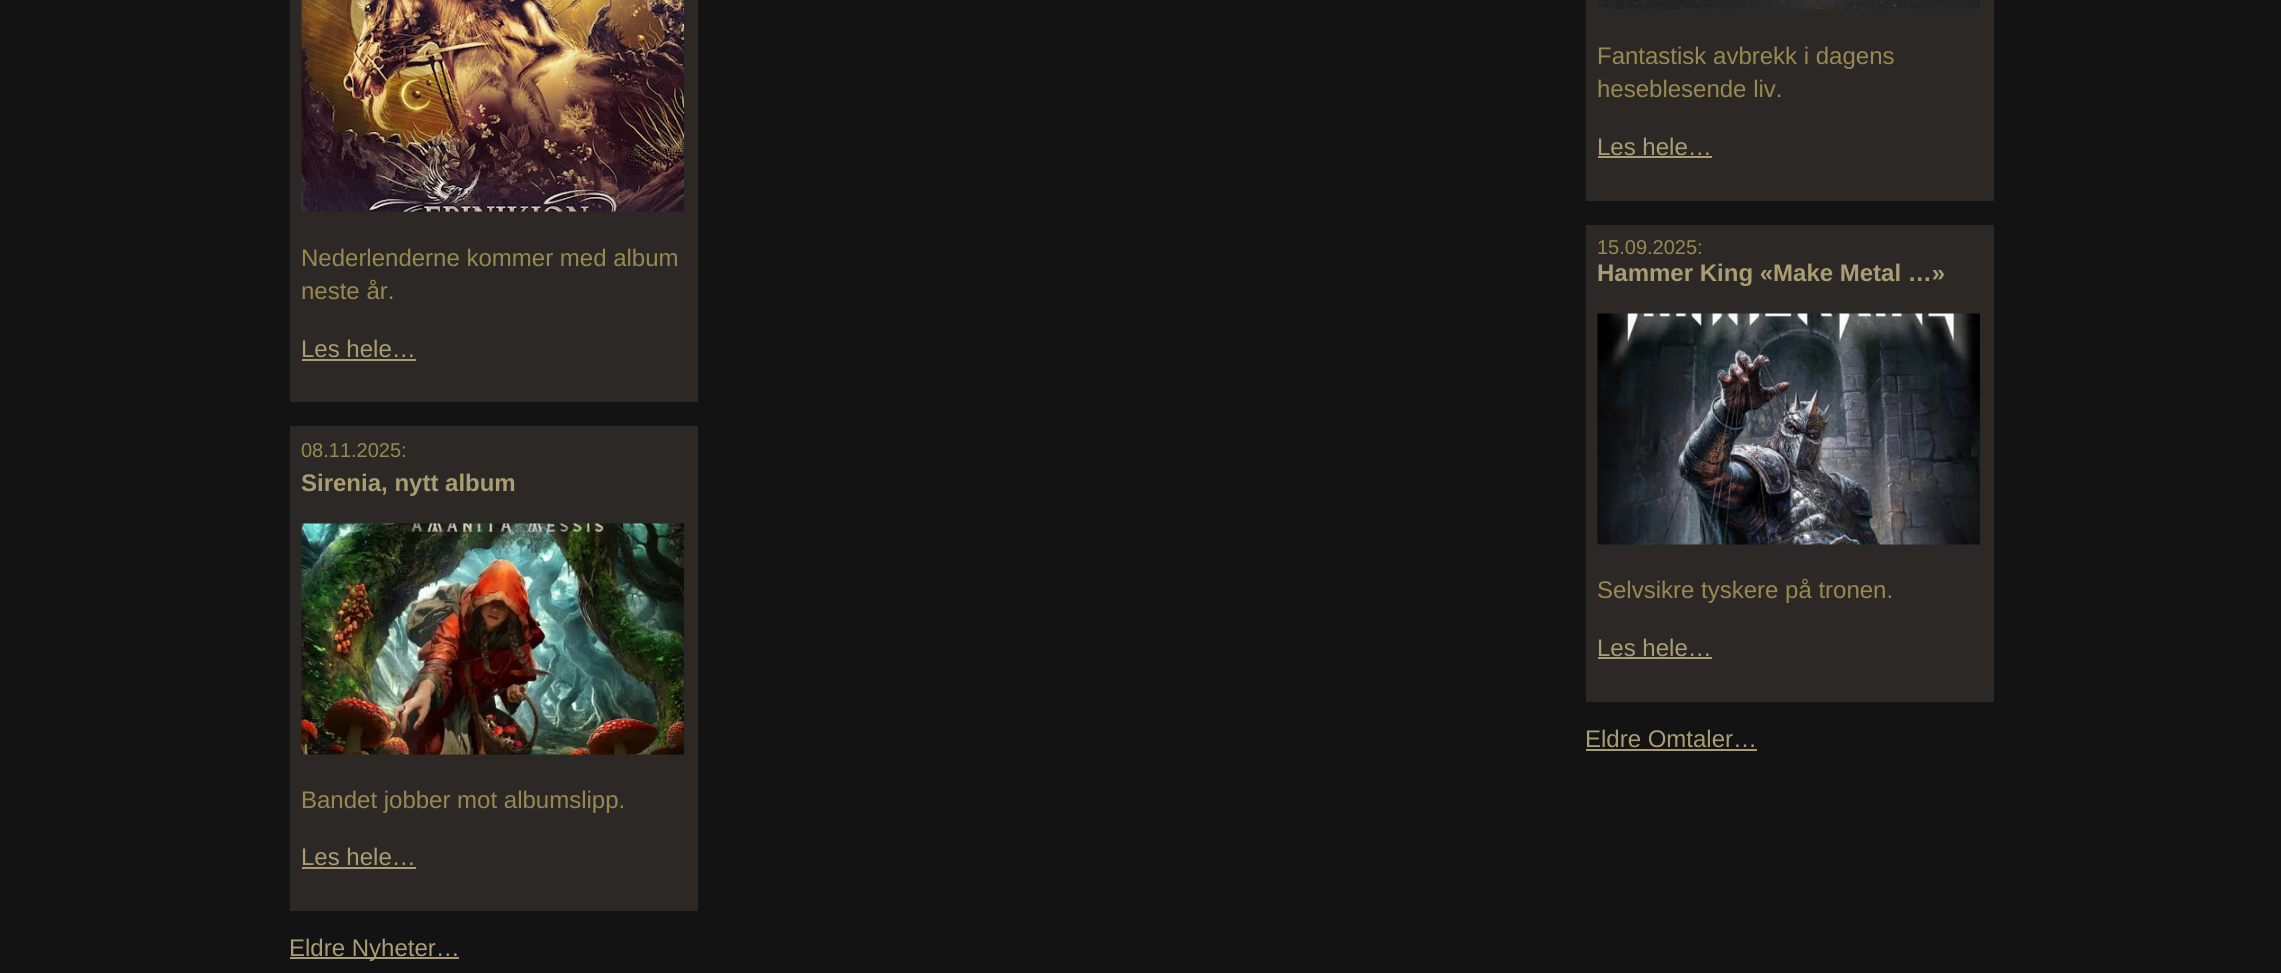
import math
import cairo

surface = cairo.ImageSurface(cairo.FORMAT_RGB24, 2281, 973)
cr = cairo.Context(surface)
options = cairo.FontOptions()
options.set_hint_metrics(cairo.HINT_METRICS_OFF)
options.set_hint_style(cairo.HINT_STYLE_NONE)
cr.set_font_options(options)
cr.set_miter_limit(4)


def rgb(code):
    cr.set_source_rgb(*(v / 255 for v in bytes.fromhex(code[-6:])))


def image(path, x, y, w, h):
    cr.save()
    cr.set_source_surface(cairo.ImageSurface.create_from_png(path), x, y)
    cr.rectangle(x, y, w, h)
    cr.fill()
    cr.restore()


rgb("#131313")
cr.paint()
rgb("#2c2825")
cr.rectangle(290, 0, 408, 402)
cr.fill()
image("img/1.png", 301, 0, 383, 212)
rgb("#a99d74")
cr.rectangle(302, 359, 114, 2)
cr.fill()
rgb("#2c2825")
cr.rectangle(290, 426, 408, 485)
cr.fill()
image("img/2.png", 301, 523, 383, 232)
for x, y, w, h, color in [
    (302, 867, 114, 2, "#a99d74"),
    (290, 957, 169, 2, "#a99d74"),
    (1586, 0, 408, 201, "#2c2825"),
]:
    rgb(color)
    cr.rectangle(x, y, w, h)
    cr.fill()
image("img/3.png", 1597, 0, 383, 9)
rgb("#a99d74")
cr.rectangle(1598, 156, 114, 2)
cr.fill()
rgb("#2c2825")
cr.rectangle(1586, 225, 408, 477)
cr.fill()
image("img/4.png", 1597, 313, 383, 232)
rgb("#a99d74")
cr.rectangle(1598, 657, 114, 2)
cr.fill()
cr.rectangle(1586, 749, 171, 2)
cr.fill()
cr.select_font_face("Liberation Sans")
cr.set_font_size(24)
rgb("#988952")
cr.move_to(301, 266)
cr.show_text("Nederlenderne kommer med album")
cr.move_to(301, 299)
cr.show_text("neste år.")
rgb("#a99d74")
cr.move_to(301, 357)
cr.show_text("Les hele…")
cr.set_font_size(20)
rgb("#988952")
cr.move_to(301, 457)
cr.show_text("08.11.2025:")
cr.select_font_face("Liberation Sans", cairo.FONT_SLANT_NORMAL, cairo.FONT_WEIGHT_BOLD)
cr.set_font_size(24)
rgb("#a99d74")
cr.move_to(301, 491)
cr.show_text("Sirenia, nytt album")
cr.select_font_face("Liberation Sans")
rgb("#988952")
cr.move_to(301, 808)
cr.show_text("Bandet jobber mot albumslipp.")
rgb("#a99d74")
cr.move_to(301, 865)
cr.show_text("Les hele…")
cr.move_to(289, 956)
cr.show_text("Eldre Nyheter…")
rgb("#988952")
cr.move_to(1597, 64)
cr.show_text("Fantastisk avbrekk i dagens")
cr.move_to(1597, 97)
cr.show_text("heseblesende liv.")
rgb("#a99d74")
cr.move_to(1597, 155)
cr.show_text("Les hele…")
cr.set_font_size(20)
rgb("#988952")
cr.move_to(1597, 254)
cr.show_text("15.09.2025:")
cr.select_font_face("Liberation Sans", cairo.FONT_SLANT_NORMAL, cairo.FONT_WEIGHT_BOLD)
cr.set_font_size(24)
rgb("#a99d74")
cr.move_to(1597, 281)
cr.show_text("Hammer King «Make Metal …»")
cr.select_font_face("Liberation Sans")
rgb("#988952")
cr.move_to(1597, 598)
cr.show_text("Selvsikre tyskere på tronen.")
rgb("#a99d74")
cr.move_to(1597, 656)
cr.show_text("Les hele…")
cr.move_to(1585, 747)
cr.show_text("Eldre Omtaler…")
surface.write_to_png("page.png")
